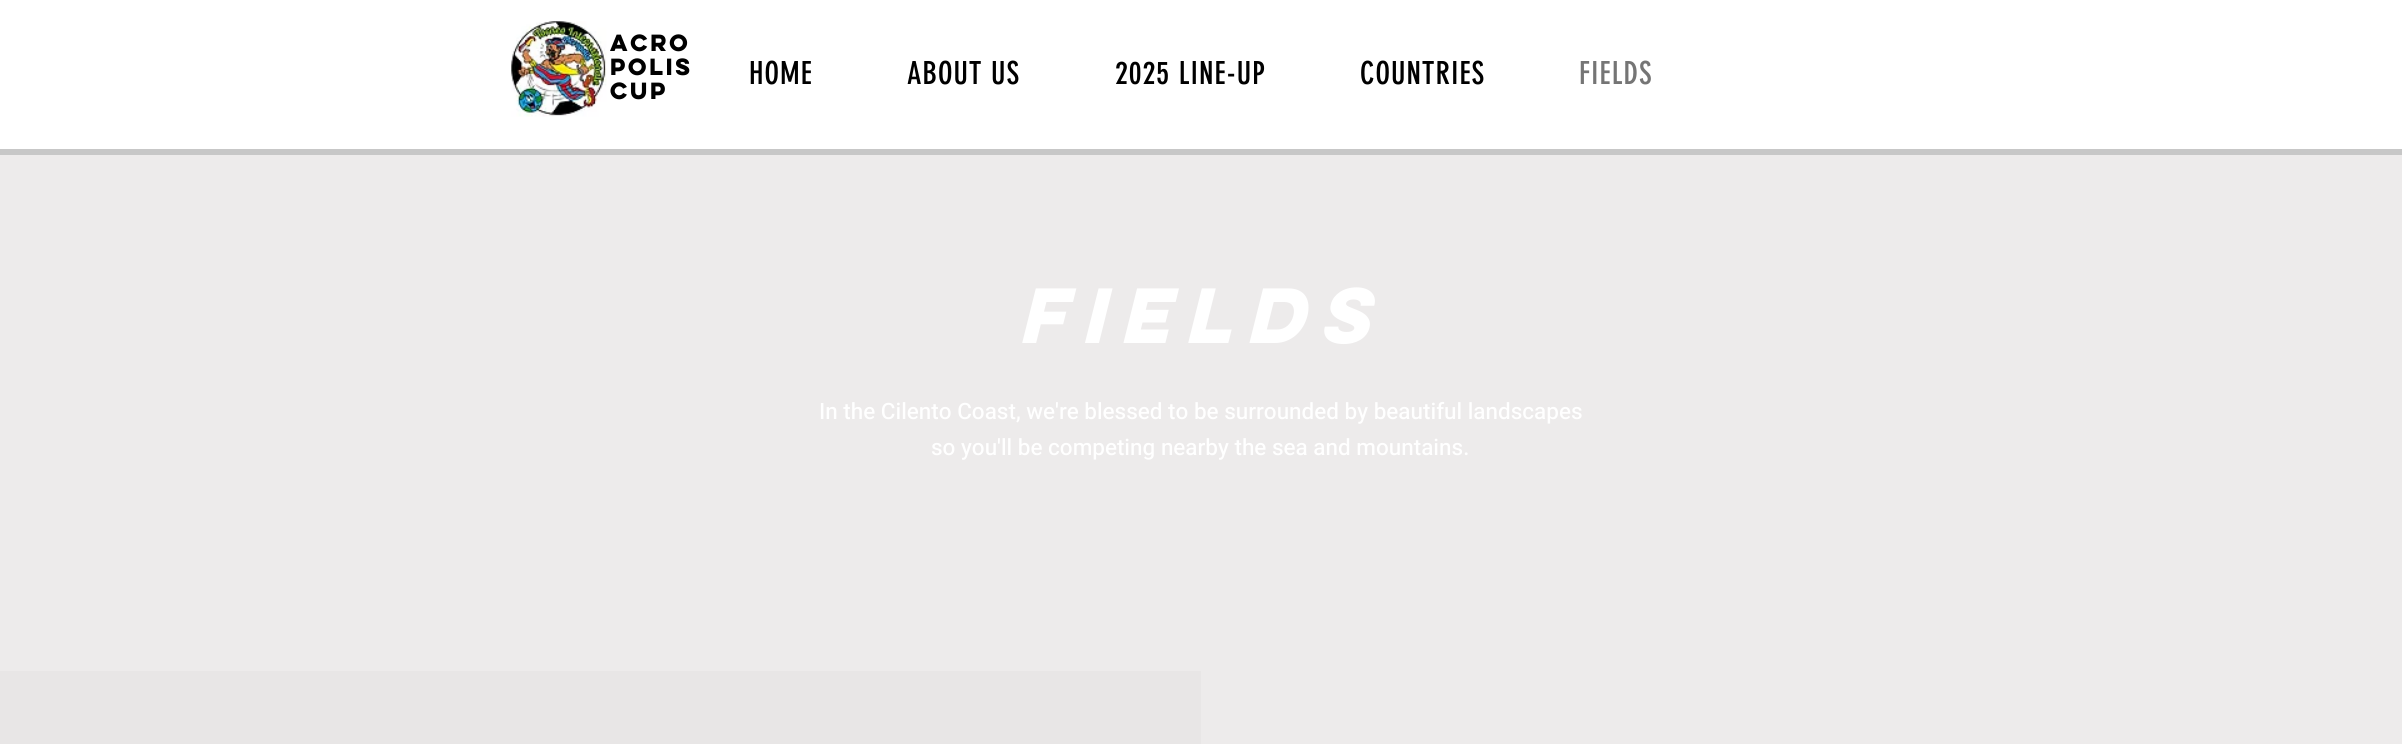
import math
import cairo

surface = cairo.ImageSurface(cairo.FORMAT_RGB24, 2402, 744)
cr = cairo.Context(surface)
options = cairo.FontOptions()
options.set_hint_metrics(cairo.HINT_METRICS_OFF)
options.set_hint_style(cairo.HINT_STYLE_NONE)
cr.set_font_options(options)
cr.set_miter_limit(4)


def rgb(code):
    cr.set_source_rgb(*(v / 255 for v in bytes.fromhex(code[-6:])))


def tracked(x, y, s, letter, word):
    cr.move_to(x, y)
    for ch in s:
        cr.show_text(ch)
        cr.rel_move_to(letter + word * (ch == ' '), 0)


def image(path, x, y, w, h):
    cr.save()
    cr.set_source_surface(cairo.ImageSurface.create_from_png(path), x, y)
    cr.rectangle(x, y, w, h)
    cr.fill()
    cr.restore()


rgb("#ffffff")
cr.paint()
image("img/1.png", 511, 21, 96, 96)
for x, y, w, h, color in [
    (0, 149, 2402, 6, "#c7c7c7"),
    (0, 155, 2402, 516, "#edebeb"),
    (0, 671, 1201, 73, "#e8e6e6"),
    (1201, 671, 1201, 73, "#edebeb"),
]:
    rgb(color)
    cr.rectangle(x, y, w, h)
    cr.fill()
cr.select_font_face("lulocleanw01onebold", cairo.FONT_SLANT_NORMAL, cairo.FONT_WEIGHT_BOLD)
cr.set_font_size(21)
rgb("#000000")
for x, y, s in [
    (610, 51, "ACRO"),
    (610, 75, "POLIS"),
    (610, 99, "CUP"),
]:
    tracked(x, y, s, -2, 0)
cr.select_font_face("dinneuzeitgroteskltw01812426")
cr.set_font_size(31.25)
for x, y, s in [
    (749, 84, "HOME"),
    (907, 84, "ABOUT US"),
    (1115, 84, "2025 LINE-UP"),
    (1360, 84, "COUNTRIES"),
]:
    tracked(x, y, s, 1, 0)
rgb("#757575")
tracked(1579, 84, "FIELDS", 1, 0)
cr.select_font_face("lulocleanw01onebold", cairo.FONT_SLANT_ITALIC, cairo.FONT_WEIGHT_BOLD)
cr.set_font_size(70)
rgb("#ffffff")
cr.move_to(1018, 343)
cr.show_text("FIELDS")
cr.select_font_face("Heebo Medium")
cr.set_font_size(22.5)
cr.move_to(819, 419)
cr.show_text("In the Cilento Coast, we're blessed to be surrounded by beautiful landscapes")
cr.move_to(931, 455)
cr.show_text("so you'll be competing nearby the sea and mountains.")
surface.write_to_png("page.png")
